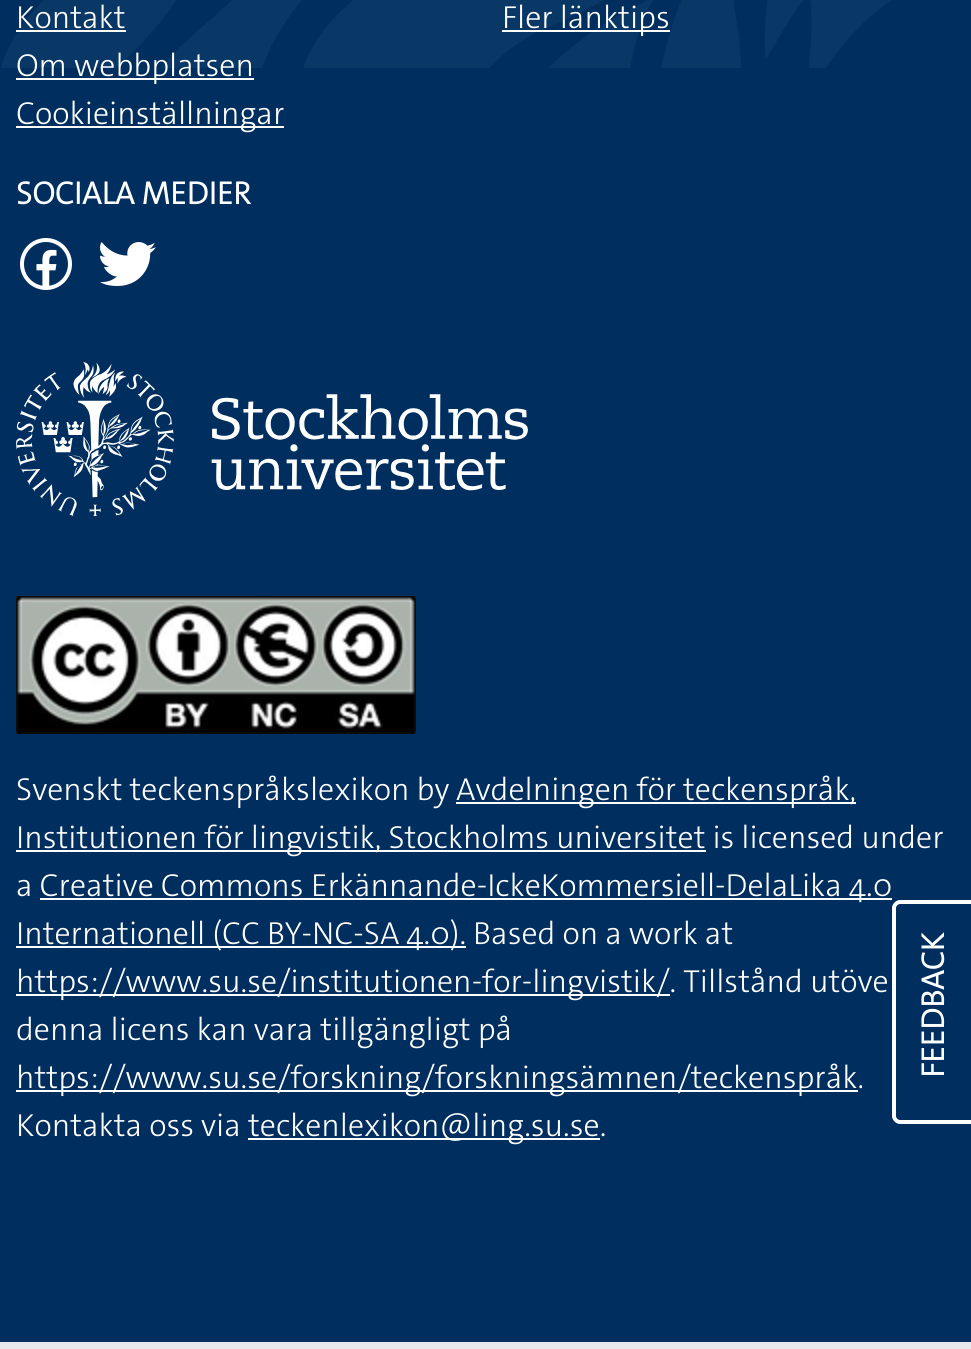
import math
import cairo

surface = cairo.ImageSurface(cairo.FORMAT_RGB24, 971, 1349)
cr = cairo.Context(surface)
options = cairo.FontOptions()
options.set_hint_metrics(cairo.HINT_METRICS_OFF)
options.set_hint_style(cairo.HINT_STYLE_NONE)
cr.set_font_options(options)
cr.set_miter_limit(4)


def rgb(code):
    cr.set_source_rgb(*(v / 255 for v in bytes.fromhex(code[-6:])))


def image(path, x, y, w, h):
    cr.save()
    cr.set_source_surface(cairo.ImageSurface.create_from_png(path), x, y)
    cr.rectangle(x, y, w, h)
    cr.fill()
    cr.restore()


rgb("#002f5f")
cr.paint()
image("img/1.png", 1, 0, 890, 68)
for x, y, w, h, color in [
    (0, 1342, 971, 7, "#e5e7eb"),
    (16, 30, 110, 2, "#ffffff"),
    (16, 78, 238, 2, "#ffffff"),
    (16, 126, 268, 2, "#ffffff"),
    (502, 30, 168, 2, "#ffffff"),
]:
    rgb(color)
    cr.rectangle(x, y, w, h)
    cr.fill()
image("img/2.png", 20, 238, 52, 52)
image("img/3.png", 100, 242, 56, 44)
image("img/4.png", 16, 362, 512, 154)
image("img/5.png", 16, 596, 400, 138)
for x, y, w, h, color in [
    (456, 802, 400, 2, "#ffffff"),
    (16, 850, 690, 2, "#ffffff"),
    (40, 898, 852, 2, "#ffffff"),
    (16, 946, 450, 2, "#ffffff"),
    (16, 994, 654, 2, "#ffffff"),
    (16, 1090, 842, 2, "#ffffff"),
    (248, 1138, 352, 2, "#ffffff"),
]:
    rgb(color)
    cr.rectangle(x, y, w, h)
    cr.fill()
cr.set_fill_rule(cairo.FILL_RULE_EVEN_ODD)
cr.new_path()
cr.move_to(900, 900)
cr.line_to(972, 900)
cr.line_to(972, 1124)
cr.line_to(900, 1124)
cr.curve_to(896, 1124, 892, 1120, 892, 1116)
cr.line_to(892, 908)
cr.curve_to(892, 904, 896, 900, 900, 900)
cr.close_path()
cr.move_to(900, 904)
cr.line_to(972, 904)
cr.line_to(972, 1120)
cr.line_to(900, 1120)
cr.curve_to(898, 1120, 896, 1118, 896, 1116)
cr.line_to(896, 908)
cr.curve_to(896, 906, 898, 904, 900, 904)
cr.close_path()
cr.fill()
cr.select_font_face("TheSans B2 Light")
cr.set_font_size(32)
for x, y, s in [
    (16, 28, "Kontakt"),
    (16, 76, "Om webbplatsen"),
    (16, 124, "Cookieinställningar"),
    (502, 28, "Fler länktips"),
]:
    cr.move_to(x, y)
    cr.show_text(s)
cr.select_font_face("TheSans B2", cairo.FONT_SLANT_NORMAL, cairo.FONT_WEIGHT_BOLD)
cr.move_to(16, 204)
cr.show_text("SOCIALA MEDIER")
cr.select_font_face("TheSans B2 Light")
for x, y, s in [
    (16, 800, "Svenskt teckenspråkslexikon by"),
    (456, 800, "Avdelningen för teckenspråk,"),
    (16, 848, "Institutionen för lingvistik, Stockholms universitet is licensed under"),
    (16, 896, "a Creative Commons"),
    (311, 896, "Erkännande-IckeKommersiell-DelaLika 4.0"),
    (16, 944, "Internationell (CC BY-NC-SA 4.0). Based on a work at"),
    (16, 992, "https://www.su.se/institutionen-for-lingvistik/. Tillstånd utöve"),
    (16, 1040, "denna licens kan vara tillgängligt på"),
    (16, 1088, "https://www.su.se/forskning/forskningsämnen/teckenspråk."),
    (16, 1136, "Kontakta oss via"),
    (248, 1136, "teckenlexikon@ling.su.se."),
]:
    cr.move_to(x, y)
    cr.show_text(s)
cr.select_font_face("TheSans B2", cairo.FONT_SLANT_NORMAL, cairo.FONT_WEIGHT_BOLD)
cr.save()
cr.translate(944, 1078)
cr.rotate(-90 * math.pi / 180)
cr.move_to(0, 0)
cr.show_text("FEEDBACK")
cr.restore()
surface.write_to_png("page.png")
